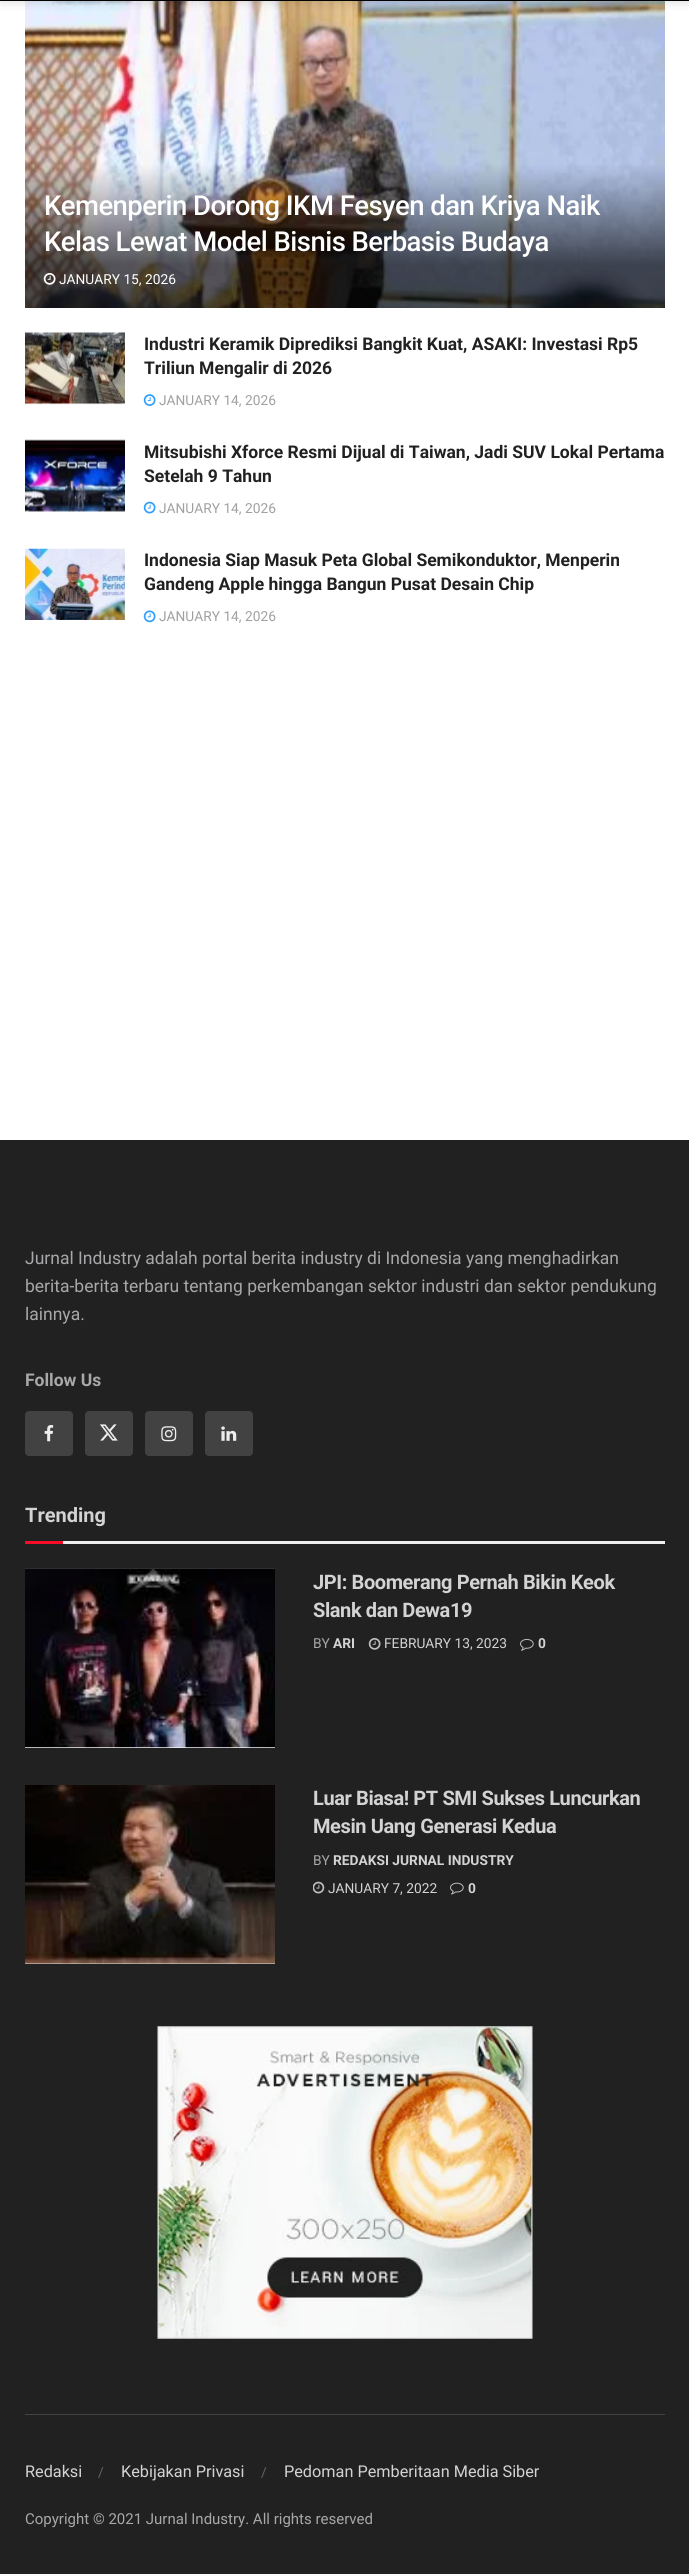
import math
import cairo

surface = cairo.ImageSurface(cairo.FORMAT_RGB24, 689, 2574)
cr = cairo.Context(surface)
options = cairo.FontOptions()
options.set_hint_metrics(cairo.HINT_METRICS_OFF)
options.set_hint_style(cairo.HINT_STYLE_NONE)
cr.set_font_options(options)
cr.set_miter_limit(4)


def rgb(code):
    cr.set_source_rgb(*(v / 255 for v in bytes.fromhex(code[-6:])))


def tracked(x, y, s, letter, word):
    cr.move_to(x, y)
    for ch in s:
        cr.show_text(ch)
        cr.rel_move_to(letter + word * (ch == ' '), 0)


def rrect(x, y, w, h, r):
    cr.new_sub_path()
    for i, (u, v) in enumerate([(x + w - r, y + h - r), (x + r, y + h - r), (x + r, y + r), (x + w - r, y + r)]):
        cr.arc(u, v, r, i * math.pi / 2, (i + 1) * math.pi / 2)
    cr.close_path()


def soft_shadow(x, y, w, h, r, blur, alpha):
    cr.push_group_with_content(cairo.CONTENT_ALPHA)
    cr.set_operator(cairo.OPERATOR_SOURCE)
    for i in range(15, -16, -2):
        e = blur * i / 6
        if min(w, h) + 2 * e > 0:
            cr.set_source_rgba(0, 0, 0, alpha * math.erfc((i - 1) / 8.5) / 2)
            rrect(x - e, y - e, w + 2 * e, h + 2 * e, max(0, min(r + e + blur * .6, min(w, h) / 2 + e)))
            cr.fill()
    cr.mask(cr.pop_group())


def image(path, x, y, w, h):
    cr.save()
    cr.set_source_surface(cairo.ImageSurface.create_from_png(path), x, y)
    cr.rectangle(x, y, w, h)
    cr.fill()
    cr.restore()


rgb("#ffffff")
cr.paint()
image("img/1.png", 25, 1, 640, 307)
rgb("#000000")
soft_shadow(0, -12, 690, 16, 0, 4, 0.1)
rgb("#000000")
cr.rectangle(0, 0, 689, 1)
cr.fill()
image("img/2.png", 43, 272, 13, 13)
rgb("#f7f7f7")
cr.rectangle(25, 403, 100, 1)
cr.fill()
rgb("#fbfbfb")
cr.rectangle(25, 332, 100, 1)
cr.fill()
image("img/3.png", 25, 332, 100, 73)
image("img/4.png", 143, 394, 13, 12)
rgb("#f7f7f7")
cr.rectangle(25, 440, 100, 71)
cr.fill()
image("img/5.png", 25, 439, 100, 73)
image("img/6.png", 143, 501, 13, 13)
image("img/7.png", 25, 548, 100, 72)
image("img/8.png", 143, 610, 13, 13)
rgb("#212121")
cr.rectangle(0, 1140, 689, 1434)
cr.fill()
rgb("#424242")
rrect(25, 1411, 48, 45, 4)
cr.fill()
image("img/9.png", 44, 1425, 10, 17)
rrect(85, 1411, 48, 45, 4)
cr.fill()
image("img/10.png", 99, 1424, 19, 17)
rrect(145, 1411, 48, 45, 4)
cr.fill()
image("img/11.png", 161, 1426, 16, 16)
rrect(205, 1411, 48, 45, 4)
cr.fill()
image("img/12.png", 221, 1426, 16, 15)
for x, y, w, h, color in [
    (63, 1541, 602, 3, "#eeeeee"),
    (25, 1541, 38, 3, "#f70d28"),
    (25, 1747, 250, 1, "#f7f7f7"),
]:
    rgb(color)
    cr.rectangle(x, y, w, h)
    cr.fill()
image("img/13.png", 25, 1568, 250, 1)
image("img/14.png", 25, 1569, 250, 179)
image("img/15.png", 368, 1638, 13, 12)
image("img/16.png", 520, 1638, 14, 13)
cr.rectangle(25, 1963, 250, 1)
cr.fill()
image("img/17.png", 25, 1785, 250, 179)
image("img/18.png", 313, 1881, 12, 13)
image("img/19.png", 450, 1882, 14, 13)
image("img/20.png", 157, 2026, 376, 313)
rgb("#424242")
cr.rectangle(25, 2414, 640, 1)
cr.fill()
cr.select_font_face("Roboto Medium")
cr.set_font_size(27.5)
rgb("#ffffff")
tracked(44, 215, "Kemenperin Dorong IKM Fesyen dan Kriya Naik", -0.55, 0)
tracked(44, 251, "Kelas Lewat Model Bisnis Berbasis Budaya", -0.55, 0)
cr.select_font_face("Roboto")
cr.set_font_size(13.75)
cr.move_to(59, 284)
cr.show_text("JANUARY 15, 2026")
cr.select_font_face("Roboto", cairo.FONT_SLANT_NORMAL, cairo.FONT_WEIGHT_BOLD)
cr.set_font_size(17.5)
rgb("#212121")
cr.move_to(144, 350)
cr.show_text("Industri Keramik Diprediksi Bangkit Kuat, ASAKI: Investasi Rp5")
cr.move_to(144, 374)
cr.show_text("Triliun Mengalir di 2026")
cr.select_font_face("Roboto")
cr.set_font_size(13.75)
rgb("#a0a0a0")
cr.move_to(159, 405)
cr.show_text("JANUARY 14, 2026")
cr.select_font_face("Roboto", cairo.FONT_SLANT_NORMAL, cairo.FONT_WEIGHT_BOLD)
cr.set_font_size(17.5)
rgb("#212121")
cr.move_to(144, 458)
cr.show_text("Mitsubishi Xforce Resmi Dijual di Taiwan, Jadi SUV Lokal Pertama")
cr.move_to(144, 482)
cr.show_text("Setelah 9 Tahun")
cr.select_font_face("Roboto")
cr.set_font_size(13.75)
rgb("#a0a0a0")
cr.move_to(159, 513)
cr.show_text("JANUARY 14, 2026")
cr.select_font_face("Roboto", cairo.FONT_SLANT_NORMAL, cairo.FONT_WEIGHT_BOLD)
cr.set_font_size(17.5)
rgb("#212121")
cr.move_to(144, 566)
cr.show_text("Indonesia Siap Masuk Peta Global Semikonduktor, Menperin")
cr.move_to(144, 590)
cr.show_text("Gandeng Apple hingga Bangun Pusat Desain Chip")
cr.select_font_face("Roboto")
cr.set_font_size(13.75)
rgb("#a0a0a0")
cr.move_to(159, 621)
cr.show_text("JANUARY 14, 2026")
cr.set_font_size(17.5)
rgb("#a8a8aa")
for x, y, s in [
    (25, 1264, "Jurnal Industry adalah portal berita industry di Indonesia yang menghadirkan"),
    (25, 1292, "berita-berita terbaru tentang perkembangan sektor industri dan sektor pendukung"),
    (25, 1320, "lainnya."),
]:
    cr.move_to(x, y)
    cr.show_text(s)
cr.select_font_face("Roboto", cairo.FONT_SLANT_NORMAL, cairo.FONT_WEIGHT_BOLD)
cr.move_to(25, 1386)
cr.show_text("Follow Us")
cr.set_font_size(20)
rgb("#d3d3d3")
cr.move_to(25, 1522)
cr.show_text("Trending")
tracked(313, 1589, "JPI: Boomerang Pernah Bikin Keok", -0.4, 0)
tracked(313, 1617, "Slank dan Dewa19", -0.4, 0)
cr.select_font_face("Roboto")
cr.set_font_size(13.75)
rgb("#a8a8aa")
cr.move_to(313, 1648)
cr.show_text("BY")
cr.select_font_face("Roboto", cairo.FONT_SLANT_NORMAL, cairo.FONT_WEIGHT_BOLD)
rgb("#d3d3d3")
cr.move_to(333, 1648)
cr.show_text("ARI")
cr.select_font_face("Roboto")
cr.move_to(384, 1648)
cr.show_text("FEBRUARY 13, 2023")
cr.select_font_face("Roboto", cairo.FONT_SLANT_NORMAL, cairo.FONT_WEIGHT_BOLD)
cr.move_to(538, 1648)
cr.show_text("0")
cr.set_font_size(20)
tracked(313, 1805, "Luar Biasa! PT SMI Sukses Luncurkan", -0.4, 0)
tracked(313, 1833, "Mesin Uang Generasi Kedua", -0.4, 0)
cr.select_font_face("Roboto")
cr.set_font_size(13.75)
rgb("#a8a8aa")
cr.move_to(313, 1865)
cr.show_text("BY")
cr.select_font_face("Roboto", cairo.FONT_SLANT_NORMAL, cairo.FONT_WEIGHT_BOLD)
rgb("#d3d3d3")
cr.move_to(333, 1865)
cr.show_text("REDAKSI JURNAL INDUSTRY")
cr.select_font_face("Roboto")
cr.move_to(328, 1893)
cr.show_text("JANUARY 7, 2022")
cr.select_font_face("Roboto", cairo.FONT_SLANT_NORMAL, cairo.FONT_WEIGHT_BOLD)
cr.move_to(468, 1893)
cr.show_text("0")
cr.select_font_face("Roboto")
cr.set_font_size(16.25)
cr.move_to(25, 2477)
cr.show_text("Redaksi")
cr.set_font_size(13.75)
rgb("#646464")
cr.move_to(98, 2477)
cr.show_text("/")
cr.set_font_size(16.25)
rgb("#d3d3d3")
cr.move_to(121, 2477)
cr.show_text("Kebijakan Privasi")
cr.set_font_size(13.75)
rgb("#646464")
cr.move_to(261, 2477)
cr.show_text("/")
cr.set_font_size(16.25)
rgb("#d3d3d3")
cr.move_to(284, 2477)
cr.show_text("Pedoman Pemberitaan Media Siber")
cr.set_font_size(15)
rgb("#a8a8aa")
cr.move_to(25, 2524)
cr.show_text("Copyright © 2021 Jurnal Industry. All rights reserved")
surface.write_to_png("page.png")
